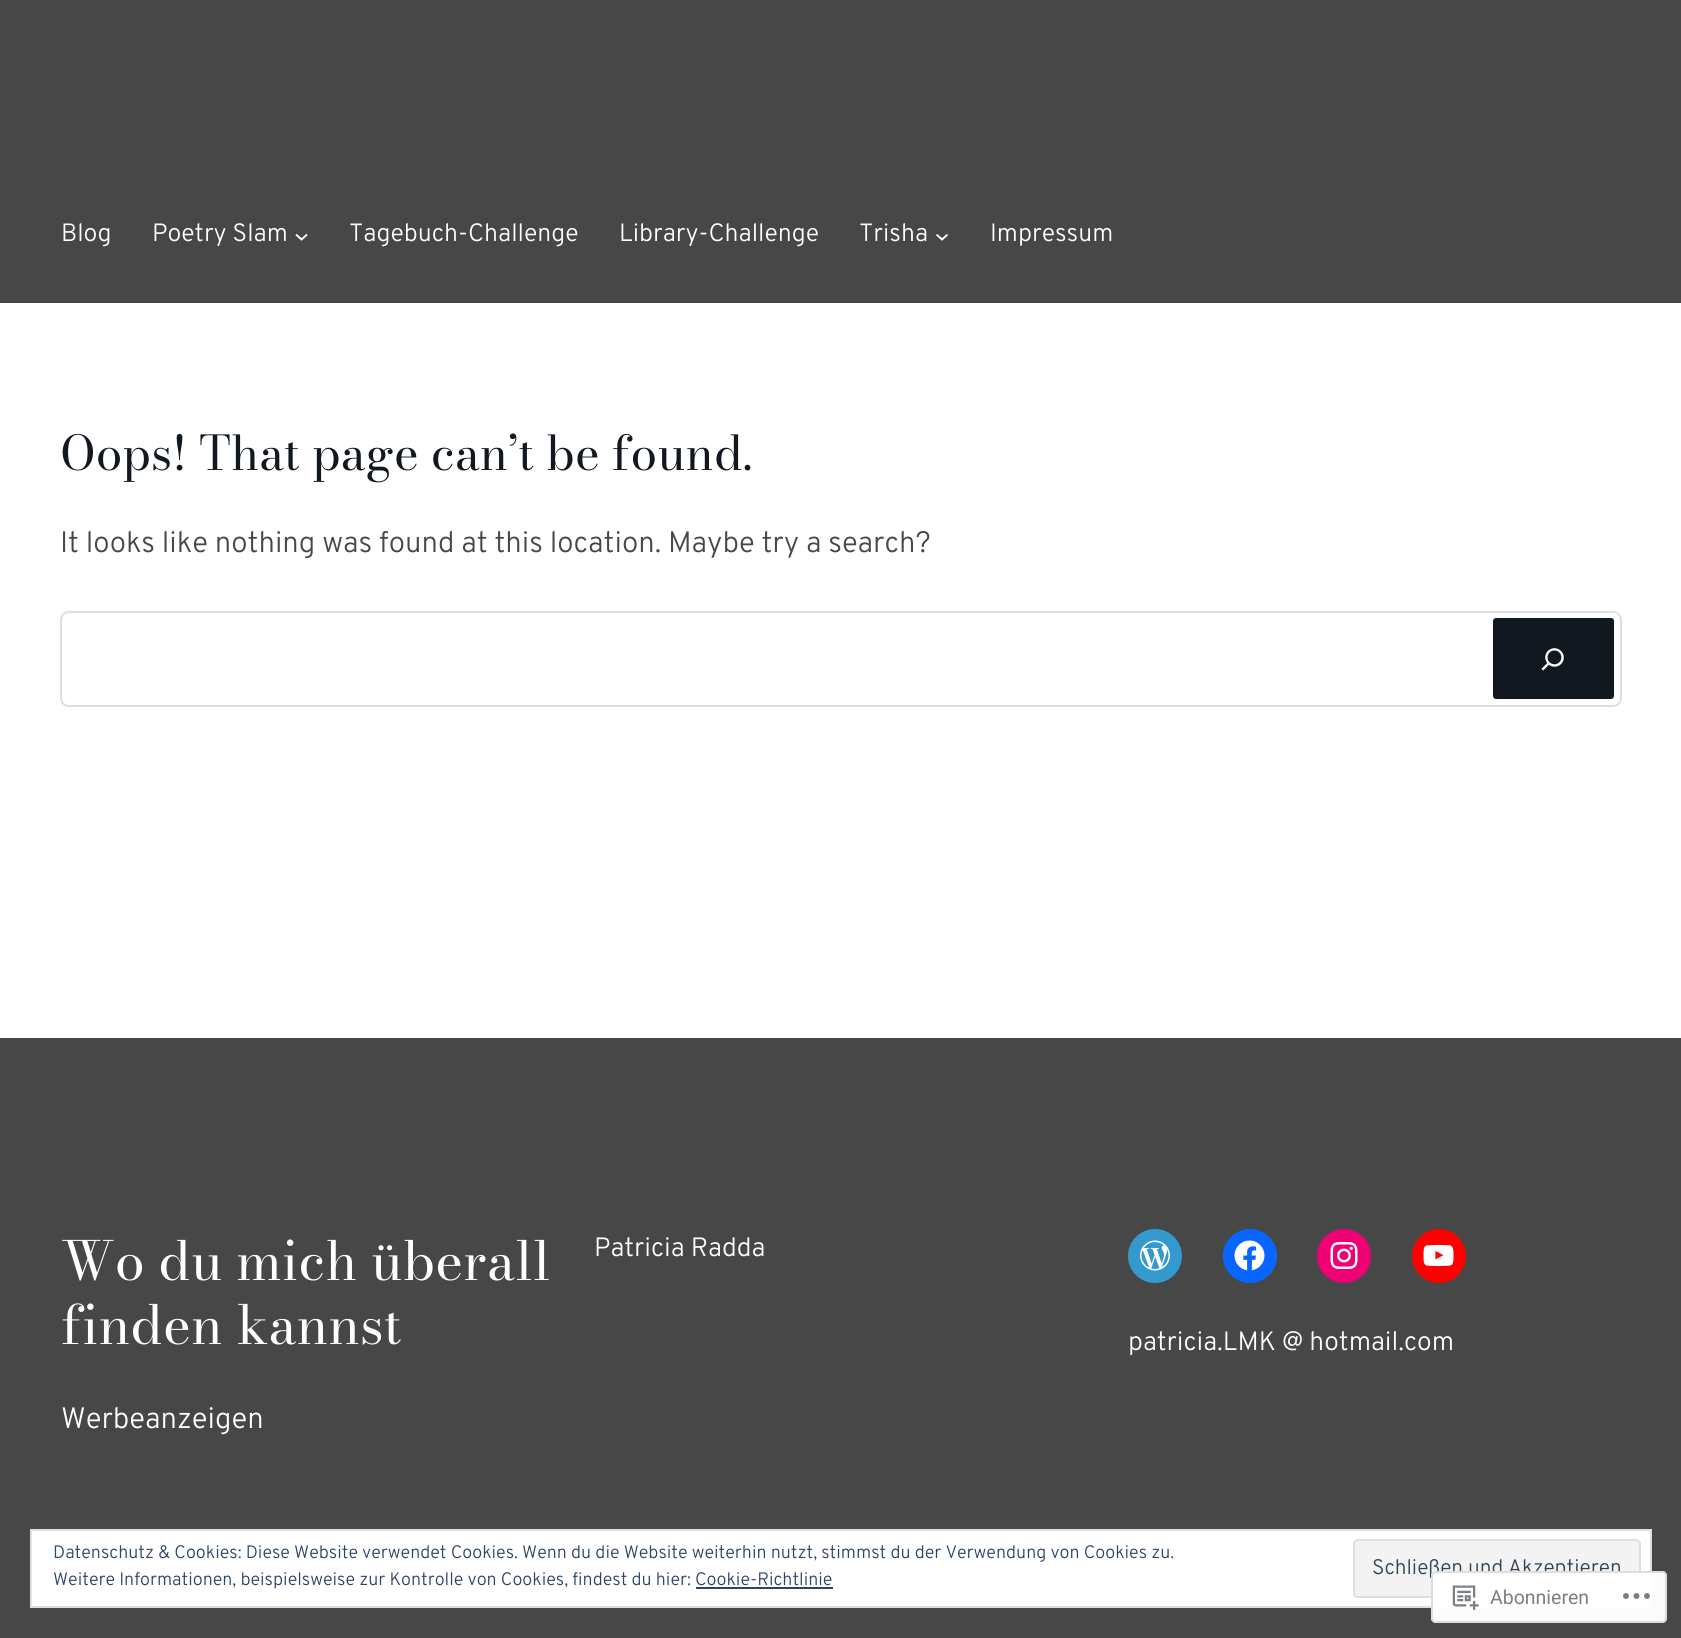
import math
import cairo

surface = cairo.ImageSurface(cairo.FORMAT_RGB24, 1681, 1638)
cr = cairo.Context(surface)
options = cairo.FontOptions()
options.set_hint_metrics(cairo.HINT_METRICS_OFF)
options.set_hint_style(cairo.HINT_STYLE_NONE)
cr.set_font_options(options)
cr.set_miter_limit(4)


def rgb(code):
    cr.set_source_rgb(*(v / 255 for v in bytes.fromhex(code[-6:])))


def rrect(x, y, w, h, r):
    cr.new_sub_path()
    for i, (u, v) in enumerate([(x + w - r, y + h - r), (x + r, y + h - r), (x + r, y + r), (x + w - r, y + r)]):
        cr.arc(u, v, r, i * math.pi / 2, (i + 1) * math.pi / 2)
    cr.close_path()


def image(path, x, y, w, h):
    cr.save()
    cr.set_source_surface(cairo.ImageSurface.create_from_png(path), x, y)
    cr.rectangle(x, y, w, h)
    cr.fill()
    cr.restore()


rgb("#ffffff")
cr.paint()
rgb("#474747")
cr.rectangle(0, 0, 1681, 303)
cr.fill()
cr.new_path()
cr.move_to(296, 234.5)
cr.line_to(301.5, 239.5)
cr.line_to(307, 234.5)
rgb("#ffffff")
cr.set_line_width(1.9)
cr.stroke()
cr.new_path()
cr.move_to(936.5, 234.5)
cr.line_to(942, 239.5)
cr.line_to(947.5, 234.5)
cr.stroke()
rrect(61, 612, 1560, 94, 8)
rgb("#dfdfdf")
cr.set_line_width(2)
cr.stroke()
rgb("#11181f")
rrect(1493, 618, 121, 81, 3)
cr.fill()
image("img/1.png", 1541, 648, 23, 23)
rgb("#474747")
cr.rectangle(0, 1038, 1681, 600)
cr.fill()
rgb("#3499cd")
cr.arc(1155, 1256, 27, 0, 2 * math.pi)
cr.fill()
image("img/2.png", 1140, 1240, 30, 31)
rgb("#0866ff")
cr.arc(1250, 1256, 27, 0, 2 * math.pi)
cr.fill()
image("img/3.png", 1234, 1240, 31, 31)
rgb("#f00075")
cr.arc(1344, 1256, 27, 0, 2 * math.pi)
cr.fill()
image("img/4.png", 1330, 1242, 28, 27)
rgb("#ff0000")
cr.arc(1439, 1256, 27, 0, 2 * math.pi)
cr.fill()
image("img/5.png", 1423, 1244, 31, 23)
rgb("#ffffff")
cr.rectangle(31, 1530, 1620, 77)
cr.fill_preserve()
rgb("#dedede")
cr.stroke()
rgb("#f3f3f3")
rrect(1354, 1540, 286, 57, 4)
cr.fill_preserve()
rgb("#dedede")
cr.stroke()
rgb("#2e4467")
cr.rectangle(696, 1587, 137, 2)
cr.fill()
cr.select_font_face("Overpass Light")
cr.set_font_size(25)
rgb("#ffffff")
for x, y, s in [
    (61, 241, "Blog"),
    (152, 241, "Poetry Slam"),
    (349, 241, "Tagebuch-Challenge"),
    (619, 241, "Library-Challenge"),
    (859, 241, "Trisha"),
    (990, 241, "Impressum"),
]:
    cr.move_to(x, y)
    cr.show_text(s)
cr.select_font_face("Bodoni Moda")
cr.set_font_size(47.5)
rgb("#11181f")
cr.move_to(60, 470)
cr.show_text("Oops! That page can’t be found.")
cr.select_font_face("Overpass Light")
cr.set_font_size(29.5)
rgb("#474747")
cr.move_to(60, 552)
cr.show_text("It looks like nothing was found at this location. Maybe try a search?")
cr.select_font_face("Bodoni Moda")
cr.set_font_size(53.5)
rgb("#ffffff")
cr.move_to(61, 1280)
cr.show_text("Wo du mich überall")
cr.move_to(61, 1344)
cr.show_text("finden kannst")
cr.select_font_face("Overpass Light")
cr.set_font_size(29.5)
cr.move_to(61, 1428)
cr.show_text("Werbeanzeigen")
cr.set_font_size(26.5)
cr.move_to(594, 1256)
cr.show_text("Patricia Radda")
cr.move_to(1128, 1350)
cr.show_text("patricia.LMK @ hotmail.com")
cr.set_font_size(18)
rgb("#2e4467")
cr.move_to(53, 1558)
cr.show_text("Datenschutz & Cookies: Diese Website verwendet Cookies. Wenn du die Website weiterhin nutzt, stimmst du der Verwendung von Cookies zu.")
cr.move_to(53, 1585)
cr.show_text("Weitere Informationen, beispielsweise zur Kontrolle von Cookies, findest du hier: Cookie-Richtlinie")
cr.set_font_size(21)
rgb("#2e4453")
cr.move_to(1372, 1574)
cr.show_text("Schließen und Akzeptieren")
cr.set_source_rgba(1, 1, 1, 0.98)
rrect(1431, 1571, 236, 52, 5)
cr.fill()
rrect(1432, 1572, 234, 50, 4)
cr.set_source_rgba(0.863, 0.863, 0.871, 0.98)
cr.stroke()
image("img/6.png", 1452, 1585, 27, 25)
cr.select_font_face("Roboto")
cr.set_font_size(19.5)
rgb("#7b7f84")
cr.move_to(1490, 1604)
cr.show_text("Abonnieren")
image("img/7.png", 1623, 1593, 27, 6)
surface.write_to_png("page.png")
